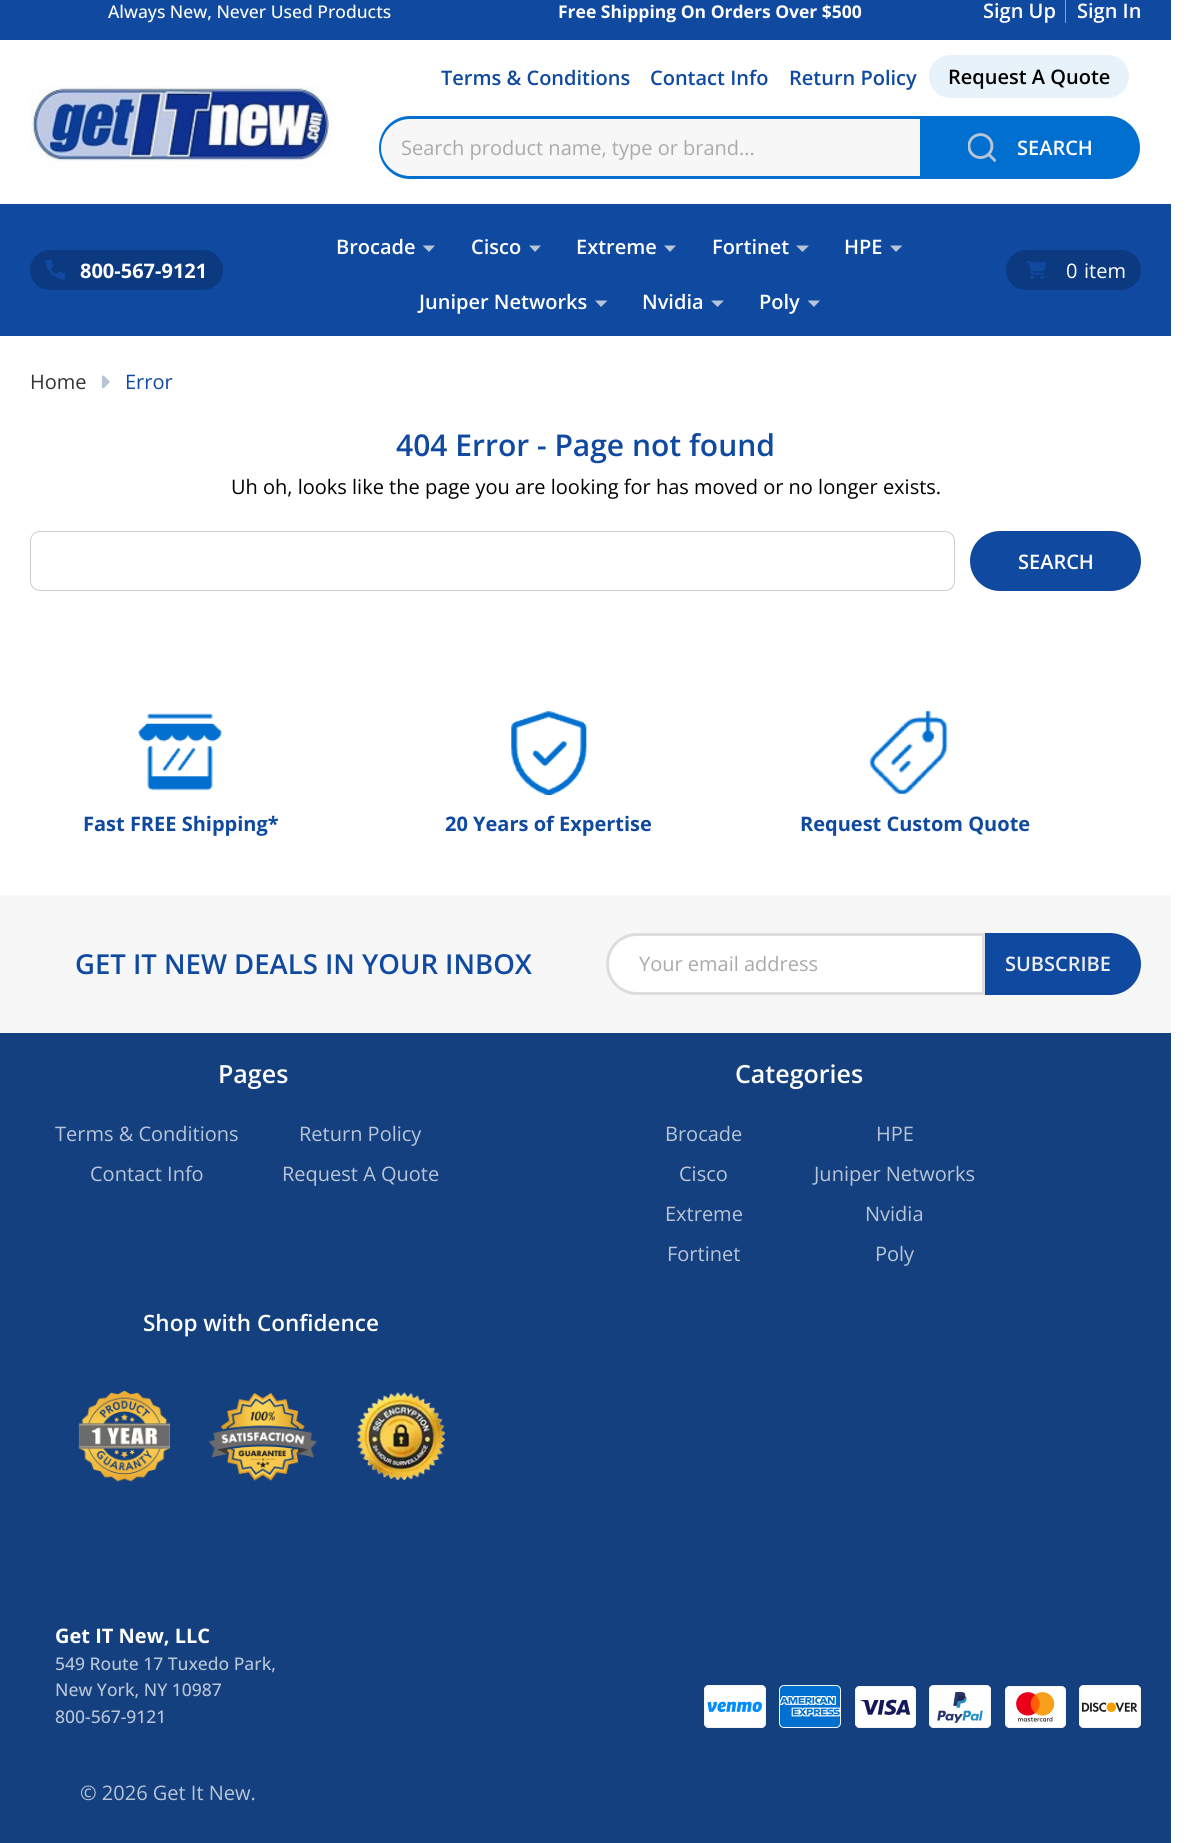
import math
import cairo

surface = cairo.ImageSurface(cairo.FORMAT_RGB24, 1190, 1843)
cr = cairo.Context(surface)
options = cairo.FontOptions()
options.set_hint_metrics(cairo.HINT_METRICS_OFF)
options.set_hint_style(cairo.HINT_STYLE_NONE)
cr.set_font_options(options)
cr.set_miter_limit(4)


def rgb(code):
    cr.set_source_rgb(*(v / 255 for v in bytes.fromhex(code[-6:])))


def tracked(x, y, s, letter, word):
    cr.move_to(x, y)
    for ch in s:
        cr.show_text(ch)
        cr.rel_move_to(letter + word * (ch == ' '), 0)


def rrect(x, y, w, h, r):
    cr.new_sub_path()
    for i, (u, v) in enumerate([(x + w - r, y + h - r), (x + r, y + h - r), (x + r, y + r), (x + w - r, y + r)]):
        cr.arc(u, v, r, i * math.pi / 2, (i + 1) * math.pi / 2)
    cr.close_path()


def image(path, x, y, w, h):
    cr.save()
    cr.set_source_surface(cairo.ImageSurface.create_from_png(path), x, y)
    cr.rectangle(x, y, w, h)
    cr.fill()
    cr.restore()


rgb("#ffffff")
cr.paint()
rgb("#0f49a0")
cr.rectangle(0, 0, 1171, 40)
cr.fill()
rgb("#87a4d0")
cr.rectangle(1065, 0, 1, 23)
cr.fill()
image("img/1.png", 30, 86, 303, 82)
rgb("#e8f2fb")
rrect(929, 55, 200, 43, 21.5)
cr.fill()
rgb("#f7f7f7")
cr.new_path()
cr.move_to(410.5, 116)
cr.line_to(920, 116)
cr.line_to(920, 179)
cr.line_to(410.5, 179)
cr.curve_to(393, 179, 379, 165, 379, 147.5)
cr.curve_to(379, 130, 393, 116, 410.5, 116)
cr.close_path()
cr.fill()
rgb("#016fd0")
cr.set_fill_rule(cairo.FILL_RULE_EVEN_ODD)
cr.new_path()
cr.move_to(410, 116)
cr.line_to(920, 116)
cr.line_to(920, 179)
cr.line_to(410, 179)
cr.curve_to(393, 179, 379, 165, 379, 148)
cr.curve_to(379, 130, 393, 116, 410, 116)
cr.close_path()
cr.move_to(410, 119)
cr.line_to(920, 119)
cr.line_to(920, 176)
cr.line_to(410, 176)
cr.curve_to(394, 176, 381, 163, 381, 148)
cr.curve_to(381, 132, 394, 119, 410, 119)
cr.close_path()
cr.fill()
cr.new_path()
cr.move_to(921.5, 117.5)
cr.line_to(1108.5, 117.5)
cr.curve_to(1125, 117.5, 1138.5, 131, 1138.5, 147.5)
cr.curve_to(1138.5, 164, 1125, 177.5, 1108.5, 177.5)
cr.line_to(921.5, 177.5)
cr.close_path()
cr.fill_preserve()
cr.set_line_width(3)
cr.stroke()
image("img/2.png", 968, 133, 28, 29)
rgb("#0f49a0")
cr.rectangle(0, 204, 1171, 132)
cr.fill()
rgb("#0c3a80")
rrect(30, 250, 193, 40, 20)
cr.fill()
image("img/3.png", 45, 260, 20, 20)
rgb("#b8c5d8")
cr.set_fill_rule(cairo.FILL_RULE_WINDING)
cr.new_path()
cr.move_to(422.5, 245.5)
cr.line_to(429, 252)
cr.line_to(435, 245.5)
cr.close_path()
cr.fill()
cr.new_path()
cr.move_to(529, 245.5)
cr.line_to(535, 252)
cr.line_to(541, 245.5)
cr.close_path()
cr.fill()
cr.new_path()
cr.move_to(664, 245.5)
cr.line_to(670, 252)
cr.line_to(676, 245.5)
cr.close_path()
cr.fill()
cr.new_path()
cr.move_to(796, 245.5)
cr.line_to(802.5, 252)
cr.line_to(809, 245.5)
cr.close_path()
cr.fill()
cr.new_path()
cr.move_to(890, 245.5)
cr.line_to(896, 252)
cr.line_to(902.5, 245.5)
cr.close_path()
cr.fill()
cr.new_path()
cr.move_to(595, 300.5)
cr.line_to(601, 307)
cr.line_to(607.5, 300.5)
cr.close_path()
cr.fill()
cr.new_path()
cr.move_to(711, 300.5)
cr.line_to(717.5, 307)
cr.line_to(724, 300.5)
cr.close_path()
cr.fill()
cr.new_path()
cr.move_to(807.5, 300.5)
cr.line_to(814, 307)
cr.line_to(820, 300.5)
cr.close_path()
cr.fill()
rgb("#0c3a80")
rrect(1006, 250, 135, 40, 20)
cr.fill()
image("img/4.png", 1026, 261, 20, 18)
image("img/5.png", 101, 375, 9, 14)
rrect(30.5, 531.5, 924, 59, 9.5)
rgb("#cccccc")
cr.set_line_width(1)
cr.stroke()
rgb("#0f49a0")
rrect(971.5, 532.5, 168, 57, 28.5)
cr.fill_preserve()
cr.set_line_width(3)
cr.stroke()
image("img/6.png", 138, 713, 84, 78)
image("img/7.png", 511, 711, 76, 84)
image("img/8.png", 869, 711, 79, 83)
rgb("#15407f")
cr.rectangle(0, 1033, 1171, 810)
cr.fill()
rgb("#f7f7f7")
cr.rectangle(0, 895, 1171, 138)
cr.fill()
rgb("#ffffff")
cr.new_path()
cr.move_to(637, 934.5)
cr.line_to(983.5, 934.5)
cr.line_to(983.5, 993.5)
cr.line_to(637, 993.5)
cr.curve_to(620.5, 993.5, 607.5, 980.5, 607.5, 964)
cr.curve_to(607.5, 947.5, 620.5, 934.5, 637, 934.5)
cr.close_path()
cr.fill_preserve()
rgb("#dddddd")
cr.stroke()
rgb("#0f49a0")
cr.new_path()
cr.move_to(985, 933)
cr.line_to(1110, 933)
cr.curve_to(1127, 933, 1141, 947, 1141, 964)
cr.curve_to(1141, 981, 1127, 995, 1110, 995)
cr.line_to(985, 995)
cr.close_path()
cr.fill()
image("img/9.png", 78, 1390, 92, 92)
image("img/10.png", 208, 1393, 109, 88)
image("img/11.png", 357, 1392, 88, 88)
image("img/12.png", 704, 1685, 62, 43)
image("img/13.png", 779, 1685, 62, 43)
image("img/14.png", 855, 1686, 61, 42)
image("img/15.png", 929, 1685, 62, 43)
image("img/16.png", 1005, 1686, 61, 42)
image("img/17.png", 1079, 1685, 62, 43)
cr.select_font_face("Open Sans Medium")
cr.set_font_size(17.5)
rgb("#ffffff")
cr.move_to(108, 18)
cr.show_text("Always New, Never Used Products")
cr.select_font_face("Open Sans", cairo.FONT_SLANT_NORMAL, cairo.FONT_WEIGHT_BOLD)
cr.move_to(558, 18)
cr.show_text("Free Shipping On Orders Over $500")
cr.select_font_face("Open Sans SemiBold")
cr.set_font_size(20)
cr.move_to(983, 18)
cr.show_text("Sign Up")
cr.move_to(1077, 18)
cr.show_text("Sign In")
rgb("#0f49a0")
for x, y, s in [
    (441, 85, "Terms & Conditions"),
    (650, 85, "Contact Info"),
    (789, 85, "Return Policy"),
]:
    cr.move_to(x, y)
    cr.show_text(s)
rgb("#000000")
cr.move_to(948, 84)
cr.show_text("Request A Quote")
cr.select_font_face("Open Sans")
rgb("#aaaaaa")
cr.move_to(401, 155)
cr.show_text("Search product name, type or brand...")
cr.select_font_face("Open Sans SemiBold")
rgb("#ffffff")
cr.move_to(1017, 155)
cr.show_text("SEARCH")
cr.select_font_face("Open Sans", cairo.FONT_SLANT_NORMAL, cairo.FONT_WEIGHT_BOLD)
cr.move_to(80, 278)
cr.show_text("800-567-9121")
cr.select_font_face("Open Sans SemiBold")
for x, y, s in [
    (336, 254, "Brocade"),
    (471, 254, "Cisco"),
    (576, 254, "Extreme"),
    (712, 254, "Fortinet"),
    (844, 254, "HPE"),
    (419, 309, "Juniper Networks"),
    (642, 309, "Nvidia"),
    (759, 309, "Poly"),
]:
    cr.move_to(x, y)
    cr.show_text(s)
cr.select_font_face("Open Sans")
tracked(1066, 278, "0", -1, 0)
cr.move_to(1084, 278)
cr.show_text("item")
rgb("#333333")
cr.move_to(30, 389)
cr.show_text("Home")
rgb("#0f49a0")
cr.move_to(125, 389)
cr.show_text("Error")
cr.select_font_face("Open Sans SemiBold")
cr.set_font_size(30)
cr.move_to(396, 456)
cr.show_text("404 Error - Page not found")
cr.select_font_face("Open Sans")
cr.set_font_size(20)
rgb("#000000")
cr.move_to(231, 494)
cr.show_text("Uh oh, looks like the page you are looking for has moved or no longer exists.")
cr.select_font_face("Open Sans SemiBold")
rgb("#ffffff")
cr.move_to(1018, 569)
cr.show_text("SEARCH")
cr.select_font_face("Open Sans", cairo.FONT_SLANT_NORMAL, cairo.FONT_WEIGHT_BOLD)
rgb("#0f49a0")
for x, y, s in [
    (83, 831, "Fast FREE Shipping*"),
    (445, 831, "20 Years of Expertise"),
    (800, 831, "Request Custom Quote"),
]:
    cr.move_to(x, y)
    cr.show_text(s)
cr.select_font_face("Open Sans SemiBold")
cr.set_font_size(27.5)
cr.move_to(75, 974)
cr.show_text("GET IT NEW DEALS IN YOUR INBOX")
cr.select_font_face("Open Sans")
cr.set_font_size(20)
rgb("#aaaaaa")
cr.move_to(639, 971)
cr.show_text("Your email address")
cr.select_font_face("Open Sans SemiBold")
rgb("#eeeeee")
cr.move_to(1005, 971)
cr.show_text("SUBSCRIBE")
cr.set_font_size(25)
rgb("#ffffff")
cr.move_to(218, 1083)
cr.show_text("Pages")
cr.select_font_face("Open Sans")
cr.set_font_size(20)
rgb("#b8c5d8")
for x, y, s in [
    (55, 1141, "Terms & Conditions"),
    (299, 1141, "Return Policy"),
    (90, 1181, "Contact Info"),
    (282, 1181, "Request A Quote"),
]:
    cr.move_to(x, y)
    cr.show_text(s)
cr.select_font_face("Open Sans SemiBold")
cr.set_font_size(25)
rgb("#ffffff")
cr.move_to(735, 1083)
cr.show_text("Categories")
cr.select_font_face("Open Sans")
cr.set_font_size(20)
rgb("#b8c5d8")
for x, y, s in [
    (665, 1141, "Brocade"),
    (876, 1141, "HPE"),
    (679, 1181, "Cisco"),
    (814, 1181, "Juniper Networks"),
    (665, 1221, "Extreme"),
    (865, 1221, "Nvidia"),
    (667, 1261, "Fortinet"),
    (875, 1261, "Poly"),
]:
    cr.move_to(x, y)
    cr.show_text(s)
cr.select_font_face("Open Sans SemiBold")
cr.set_font_size(22.5)
rgb("#ffffff")
cr.move_to(143, 1331)
cr.show_text("Shop with Confidence")
cr.select_font_face("Open Sans", cairo.FONT_SLANT_NORMAL, cairo.FONT_WEIGHT_BOLD)
cr.set_font_size(20)
cr.move_to(55, 1643)
cr.show_text("Get IT New, LLC")
cr.select_font_face("Open Sans Medium")
cr.set_font_size(17.5)
rgb("#b8c5d8")
for x, y, s in [
    (55, 1670, "549 Route 17 Tuxedo Park,"),
    (55, 1696, "New York, NY 10987"),
    (55, 1723, "800-567-9121"),
]:
    cr.move_to(x, y)
    cr.show_text(s)
cr.select_font_face("Open Sans")
cr.set_font_size(20)
cr.move_to(80, 1800)
cr.show_text("© 2026 Get It New.")
surface.write_to_png("page.png")
